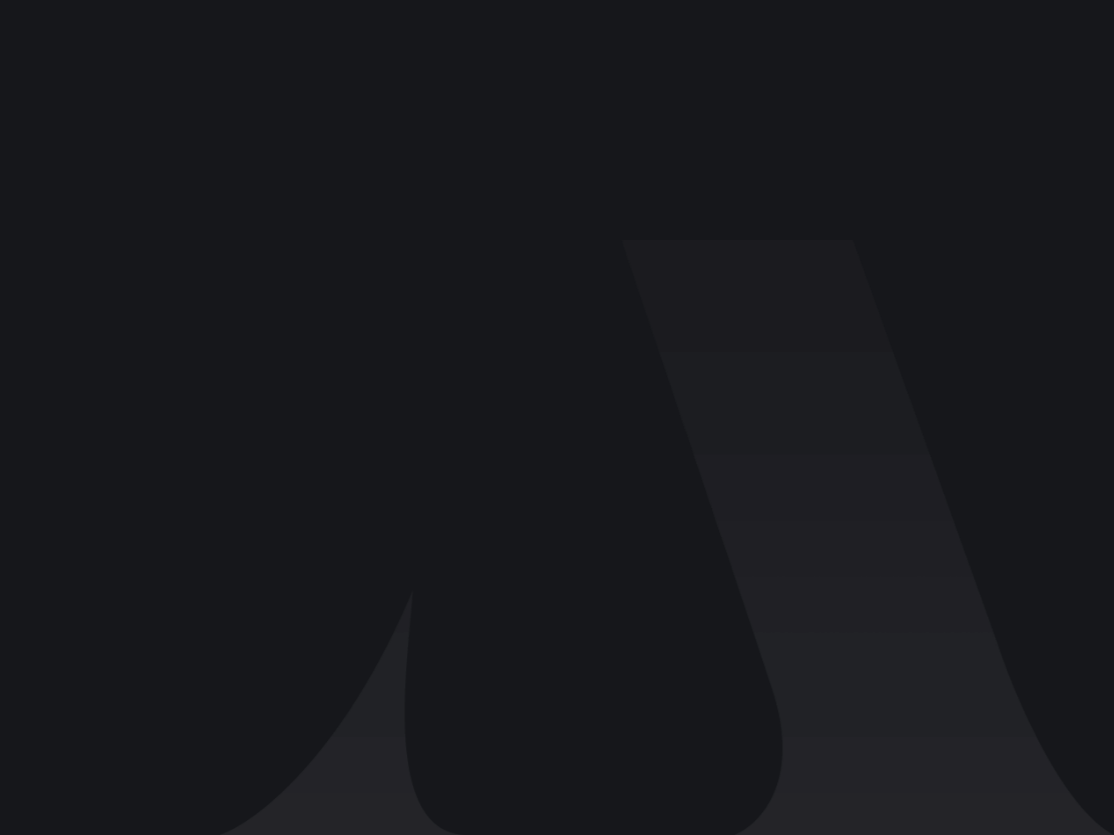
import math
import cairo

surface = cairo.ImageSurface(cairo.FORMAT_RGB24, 1114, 835)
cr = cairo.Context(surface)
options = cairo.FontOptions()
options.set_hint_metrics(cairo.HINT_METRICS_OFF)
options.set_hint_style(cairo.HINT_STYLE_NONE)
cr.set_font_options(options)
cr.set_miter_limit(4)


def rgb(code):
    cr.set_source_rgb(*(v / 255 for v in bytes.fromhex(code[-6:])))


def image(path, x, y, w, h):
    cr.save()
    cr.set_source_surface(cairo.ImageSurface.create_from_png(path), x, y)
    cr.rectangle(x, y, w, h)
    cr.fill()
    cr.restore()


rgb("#16171b")
cr.paint()
image("img/1.png", 220, 240, 893, 595)
surface.write_to_png("page.png")
